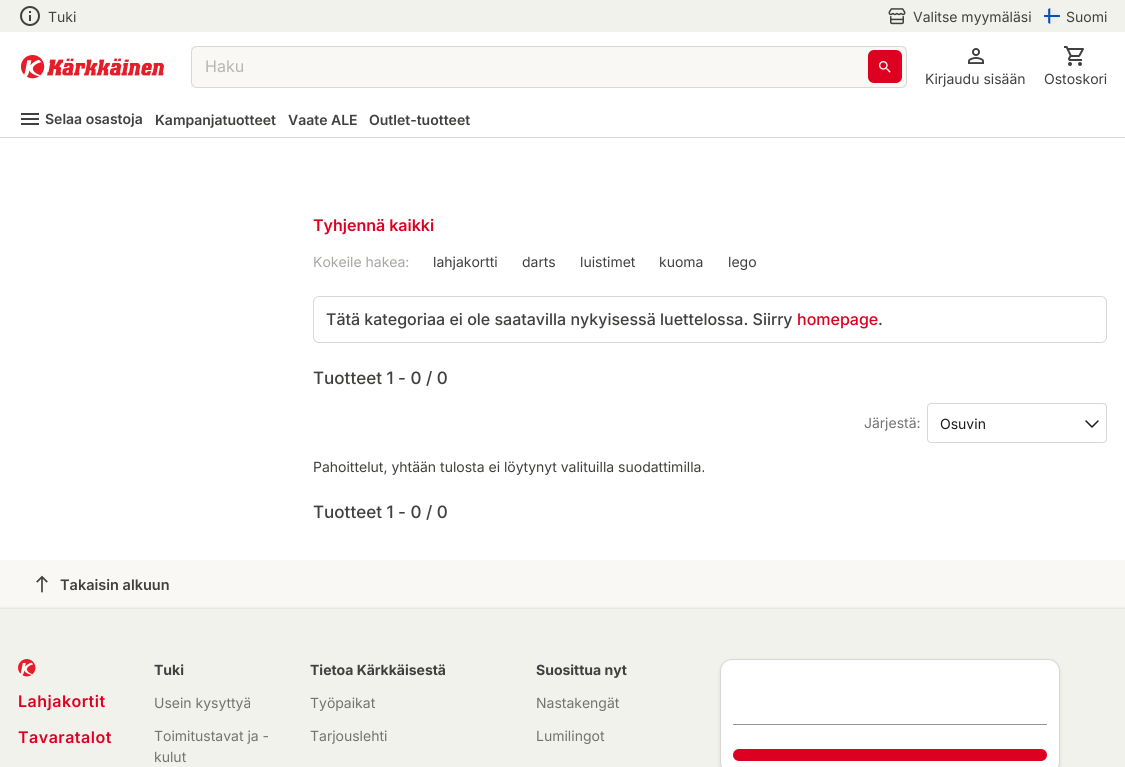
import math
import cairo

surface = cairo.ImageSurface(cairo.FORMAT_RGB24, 1125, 767)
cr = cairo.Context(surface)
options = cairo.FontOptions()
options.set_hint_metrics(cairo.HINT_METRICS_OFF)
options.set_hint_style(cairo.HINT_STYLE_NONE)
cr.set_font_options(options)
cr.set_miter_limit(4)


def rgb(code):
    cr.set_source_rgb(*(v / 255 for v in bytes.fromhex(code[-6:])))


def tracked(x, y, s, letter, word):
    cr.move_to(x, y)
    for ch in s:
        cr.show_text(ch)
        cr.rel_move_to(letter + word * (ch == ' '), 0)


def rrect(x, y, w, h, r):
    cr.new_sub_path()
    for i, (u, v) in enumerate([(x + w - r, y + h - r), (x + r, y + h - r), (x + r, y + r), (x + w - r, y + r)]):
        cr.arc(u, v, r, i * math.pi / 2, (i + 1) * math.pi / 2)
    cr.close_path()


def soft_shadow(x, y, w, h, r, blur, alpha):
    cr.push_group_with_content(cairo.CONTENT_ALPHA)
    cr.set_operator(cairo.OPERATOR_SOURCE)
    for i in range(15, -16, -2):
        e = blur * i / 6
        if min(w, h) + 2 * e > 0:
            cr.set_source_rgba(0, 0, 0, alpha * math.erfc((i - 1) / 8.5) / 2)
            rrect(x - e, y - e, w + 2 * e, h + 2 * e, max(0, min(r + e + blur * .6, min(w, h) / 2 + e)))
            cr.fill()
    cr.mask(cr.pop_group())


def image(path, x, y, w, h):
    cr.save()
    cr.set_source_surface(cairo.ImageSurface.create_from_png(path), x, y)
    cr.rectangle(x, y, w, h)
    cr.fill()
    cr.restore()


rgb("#ffffff")
cr.paint()
rgb("#d9d8d4")
cr.rectangle(0, 137, 1125, 1)
cr.fill()
rgb("#f2f2ed")
cr.rectangle(0, 0, 1125, 32)
cr.fill()
image("img/1.png", 20, 6, 20, 20)
image("img/2.png", 888, 8, 18, 17)
image("img/3.png", 1044, 8, 16, 16)
image("img/4.png", 20, 55, 144, 24)
rgb("#f9f8f4")
cr.rectangle(191, 46, 716, 42)
cr.fill()
rgb("#de0021")
rrect(868, 50, 34, 33, 6)
cr.fill()
image("img/5.png", 879, 61, 12, 12)
rrect(191.5, 46.5, 715, 41, 5.5)
rgb("#d9d8d4")
cr.set_line_width(1)
cr.stroke()
image("img/6.png", 968, 48, 16, 16)
image("img/7.png", 1064, 46, 20, 20)
image("img/8.png", 21, 113, 18, 12)
rrect(313.5, 296.5, 793, 46, 5.5)
cr.stroke()
rrect(927.5, 403.5, 179, 39, 3.5)
cr.stroke()
image("img/9.png", 1085, 420, 14, 8)
rgb("#f9f8f4")
cr.rectangle(0, 560, 1125, 49)
cr.fill()
image("img/10.png", 36, 575, 12, 18)
rgb("#000000")
soft_shadow(-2, 608, 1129, 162, 0, 1, 0.1)
rgb("#f2f2ed")
cr.rectangle(0, 609, 1125, 158)
cr.fill()
rgb("#f9f8f4")
rrect(18, 659, 18, 18, 6)
cr.fill()
image("img/11.png", 18, 659, 18, 18)
rgb("#000000")
soft_shadow(720, 661, 340, 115, 12, 2, 0.1)
rgb("#ffffff")
rrect(720.5, 659.5, 339, 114, 11.5)
cr.fill_preserve()
rgb("#d9d8d4")
cr.stroke()
rgb("#949494")
cr.rectangle(733, 724, 314, 1)
cr.fill()
rgb("#de0021")
rrect(733, 749, 314, 12, 6)
cr.fill()
cr.select_font_face("Inter")
cr.set_font_size(14)
rgb("#40403e")
for x, y, s in [
    (48, 22, "Tuki"),
    (913, 22, "Valitse myymäläsi"),
    (1066, 22, "Suomi"),
]:
    cr.move_to(x, y)
    cr.show_text(s)
cr.set_font_size(16)
rgb("#b7b6b2")
cr.move_to(205, 72)
cr.show_text("Haku")
cr.set_font_size(14)
rgb("#40403e")
cr.move_to(925, 84)
cr.show_text("Kirjaudu sisään")
cr.move_to(1044, 84)
cr.show_text("Ostoskori")
cr.select_font_face("Inter SemiBold")
for x, y, s in [
    (45, 124, "Selaa osastoja"),
    (155, 125, "Kampanjatuotteet"),
    (288, 125, "Vaate ALE"),
    (369, 125, "Outlet-tuotteet"),
]:
    cr.move_to(x, y)
    cr.show_text(s)
cr.set_font_size(16)
rgb("#de0021")
cr.move_to(313, 231)
cr.show_text("Tyhjennä kaikki")
cr.select_font_face("Inter")
cr.set_font_size(14)
rgb("#a6a5a2")
cr.move_to(313, 267)
cr.show_text("Kokeile hakea:")
rgb("#40403e")
for x, y, s in [
    (433, 267, "lahjakortti"),
    (522, 267, "darts"),
    (580, 267, "luistimet"),
    (659, 267, "kuoma"),
    (728, 267, "lego"),
]:
    cr.move_to(x, y)
    cr.show_text(s)
cr.select_font_face("Inter Medium")
cr.set_font_size(16)
cr.move_to(326, 325)
cr.show_text("Tätä kategoriaa ei ole saatavilla nykyisessä luettelossa. Siirry")
rgb("#de0021")
cr.move_to(797, 325)
cr.show_text("homepage")
rgb("#40403e")
cr.move_to(878, 325)
cr.show_text(".")
cr.set_font_size(17)
cr.move_to(313, 384)
cr.show_text("Tuotteet 1 - 0 / 0")
cr.select_font_face("Inter")
cr.set_font_size(14)
rgb("#737270")
cr.move_to(864, 428)
cr.show_text("Järjestä:")
rgb("#1d1c1c")
cr.move_to(940, 429)
cr.show_text("Osuvin")
rgb("#40403e")
cr.move_to(313, 472)
cr.show_text("Pahoittelut, yhtään tulosta ei löytynyt valituilla suodattimilla.")
cr.select_font_face("Inter Medium")
cr.set_font_size(17)
cr.move_to(313, 518)
cr.show_text("Tuotteet 1 - 0 / 0")
cr.select_font_face("Inter SemiBold")
cr.set_font_size(14.5)
cr.move_to(60, 590)
cr.show_text("Takaisin alkuun")
cr.set_font_size(16)
rgb("#de0021")
tracked(18, 707, "Lahjakortit", 0.5, 0)
tracked(18, 743, "Tavaratalot", 0.5, 0)
cr.select_font_face("Inter", cairo.FONT_SLANT_NORMAL, cairo.FONT_WEIGHT_BOLD)
cr.set_font_size(14)
rgb("#40403e")
cr.move_to(154, 675)
cr.show_text("Tuki")
cr.select_font_face("Inter")
rgb("#737270")
for x, y, s in [
    (154, 708, "Usein kysyttyä"),
    (154, 741, "Toimitustavat ja -"),
    (154, 762, "kulut"),
]:
    cr.move_to(x, y)
    cr.show_text(s)
cr.select_font_face("Inter", cairo.FONT_SLANT_NORMAL, cairo.FONT_WEIGHT_BOLD)
rgb("#40403e")
cr.move_to(310, 675)
cr.show_text("Tietoa Kärkkäisestä")
cr.select_font_face("Inter")
rgb("#737270")
cr.move_to(310, 708)
cr.show_text("Työpaikat")
cr.move_to(310, 741)
cr.show_text("Tarjouslehti")
cr.select_font_face("Inter", cairo.FONT_SLANT_NORMAL, cairo.FONT_WEIGHT_BOLD)
rgb("#40403e")
cr.move_to(536, 675)
cr.show_text("Suosittua nyt")
cr.select_font_face("Inter")
rgb("#737270")
cr.move_to(536, 708)
cr.show_text("Nastakengät")
cr.move_to(536, 741)
cr.show_text("Lumilingot")
surface.write_to_png("page.png")
